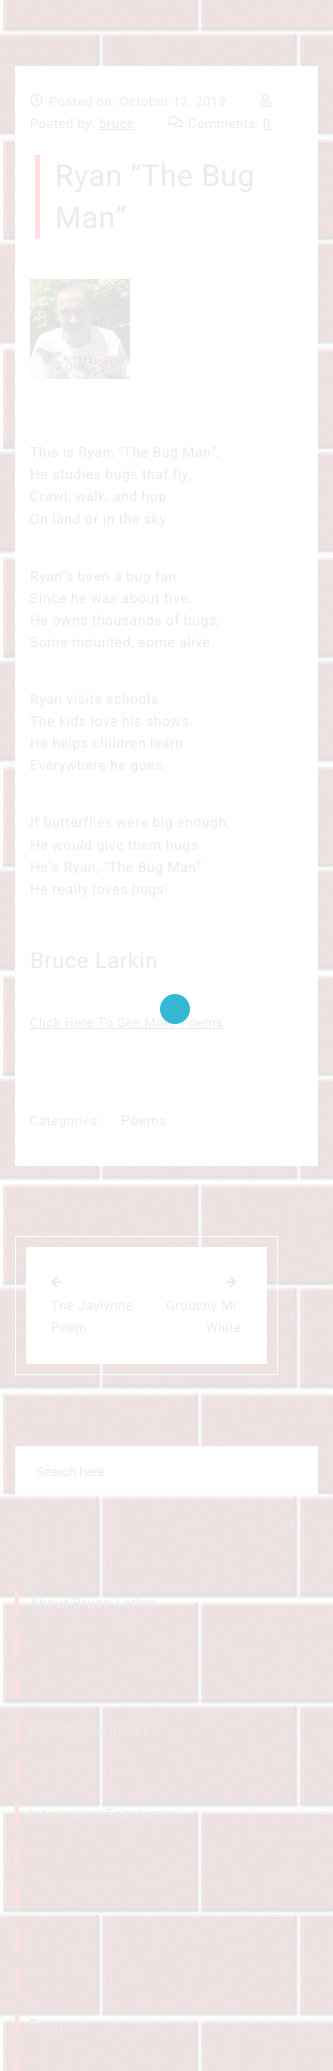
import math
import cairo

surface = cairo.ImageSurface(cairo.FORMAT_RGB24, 333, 2071)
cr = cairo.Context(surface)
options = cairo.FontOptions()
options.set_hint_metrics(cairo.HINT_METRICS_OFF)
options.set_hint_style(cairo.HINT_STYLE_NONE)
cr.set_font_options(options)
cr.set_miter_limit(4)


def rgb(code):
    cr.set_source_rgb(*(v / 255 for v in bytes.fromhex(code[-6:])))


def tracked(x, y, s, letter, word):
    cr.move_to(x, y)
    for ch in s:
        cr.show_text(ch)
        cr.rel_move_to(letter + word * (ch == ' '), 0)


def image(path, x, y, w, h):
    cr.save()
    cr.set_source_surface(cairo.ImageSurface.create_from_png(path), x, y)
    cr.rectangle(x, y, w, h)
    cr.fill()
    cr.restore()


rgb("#ffffff")
cr.paint()
image("img/1.png", 0, 0, 333, 2071)
rgb("#ffffff")
cr.rectangle(15, 66, 303, 1100)
cr.fill()
image("img/2.png", 30, 93, 13, 14)
image("img/3.png", 260, 93, 12, 14)
rgb("#e9e9e9")
cr.rectangle(99, 129, 35, 1)
cr.fill()
image("img/4.png", 168, 116, 15, 12)
cr.rectangle(263, 129, 8, 1)
cr.fill()
rgb("#ffe0e0")
cr.rectangle(35, 155, 5, 84)
cr.fill()
image("img/5.png", 30, 279, 100, 100)
rgb("#e9e9e9")
cr.rectangle(30, 1028, 193, 1)
cr.fill()
cr.rectangle(15.5, 1236.5, 262, 138)
rgb("#fdfdfd")
cr.set_line_width(1)
cr.stroke()
rgb("#ffffff")
cr.rectangle(26, 1247, 241, 117)
cr.fill()
image("img/6.png", 51, 1276, 12, 12)
image("img/7.png", 225, 1276, 12, 12)
cr.rectangle(15.5, 1446.5, 302, 49)
cr.fill_preserve()
rgb("#f9f9f9")
cr.stroke()
for x, y, w, h, color in [
    (15, 1592, 4, 22, "#ffe0e0"),
    (15, 1634, 4, 22, "#ffe0e0"),
    (15, 1676, 4, 23, "#ffe0e0"),
    (15, 1719, 4, 22, "#ffe0e0"),
    (15, 1761, 4, 22, "#ffe0e0"),
    (15, 1803, 4, 22, "#ffe0e0"),
    (15, 1845, 4, 22, "#ffe0e0"),
    (15, 1887, 4, 22, "#ffe0e0"),
    (15, 1929, 4, 22, "#ffe0e0"),
    (15, 1971, 4, 22, "#ffe0e0"),
    (15, 2013, 4, 22, "#ffe0e0"),
    (15, 2055, 4, 16, "#ffe0e0"),
]:
    rgb(color)
    cr.rectangle(x, y, w, h)
    cr.fill()
cr.select_font_face("Roboto")
cr.set_font_size(13)
rgb("#ebebeb")
for x, y, s in [
    (49, 106, "Posted on: October 12, 2012"),
    (30, 128, "Posted by:"),
    (99, 128, "bruce"),
    (188, 128, "Comments:"),
    (263, 128, "0"),
]:
    tracked(x, y, s, 0.5, 0)
cr.set_font_size(30)
tracked(55, 186, "Ryan “The Bug", 0.5, 0)
tracked(55, 228, "Man”", 0.5, 0)
cr.set_font_size(14)
for x, y, s in [
    (30, 457, "This is Ryan, “The Bug Man”,"),
    (30, 479, "He studies bugs that fly,"),
    (30, 501, "Crawl, walk, and hop"),
    (30, 524, "On land or in the sky."),
    (30, 581, "Ryan’s been a bug fan"),
    (30, 603, "Since he was about five."),
    (30, 625, "He owns thousands of bugs;"),
    (30, 647, "Some mounted, some alive."),
    (30, 704, "Ryan visits schools."),
    (30, 726, "The kids love his shows."),
    (30, 748, "He helps children learn"),
    (30, 770, "Everywhere he goes."),
    (30, 827, "If butterflies were big enough,"),
    (30, 850, "He would give them hugs."),
    (30, 872, "He’s Ryan, “The Bug Man”"),
    (30, 894, "He really loves bugs!"),
]:
    tracked(x, y, s, 0.5, 0)
cr.set_font_size(22)
tracked(30, 968, "Bruce Larkin", 0.5, 0)
cr.set_font_size(13)
tracked(30, 1027, "Click Here To See More Poems", 0.5, 0)
tracked(30, 1125, "Categories:", 0.5, 0)
cr.set_font_size(14)
tracked(121, 1125, "Poems", 0.5, 0)
cr.set_font_size(13)
for x, y, s in [
    (51, 1310, "The Jaylynne"),
    (51, 1332, "Poem"),
    (166, 1310, "Grouchy Mr."),
    (206, 1332, "White"),
]:
    tracked(x, y, s, 0.5, 0)
cr.move_to(36, 1476)
cr.show_text("Search here")
cr.set_font_size(14)
for x, y, s in [
    (29, 1608, "About Bruce Larkin"),
    (29, 1735, "Free Online Books"),
    (29, 1819, "Interesting Teachers"),
    (29, 2029, "Poems"),
]:
    tracked(x, y, s, 0.5, 0)
cr.set_source_rgba(0.102, 0.686, 0.816, 0.88)
cr.new_path()
cr.arc(175, 1009, 15, 0, 2 * math.pi)
cr.fill()
surface.write_to_png("page.png")
